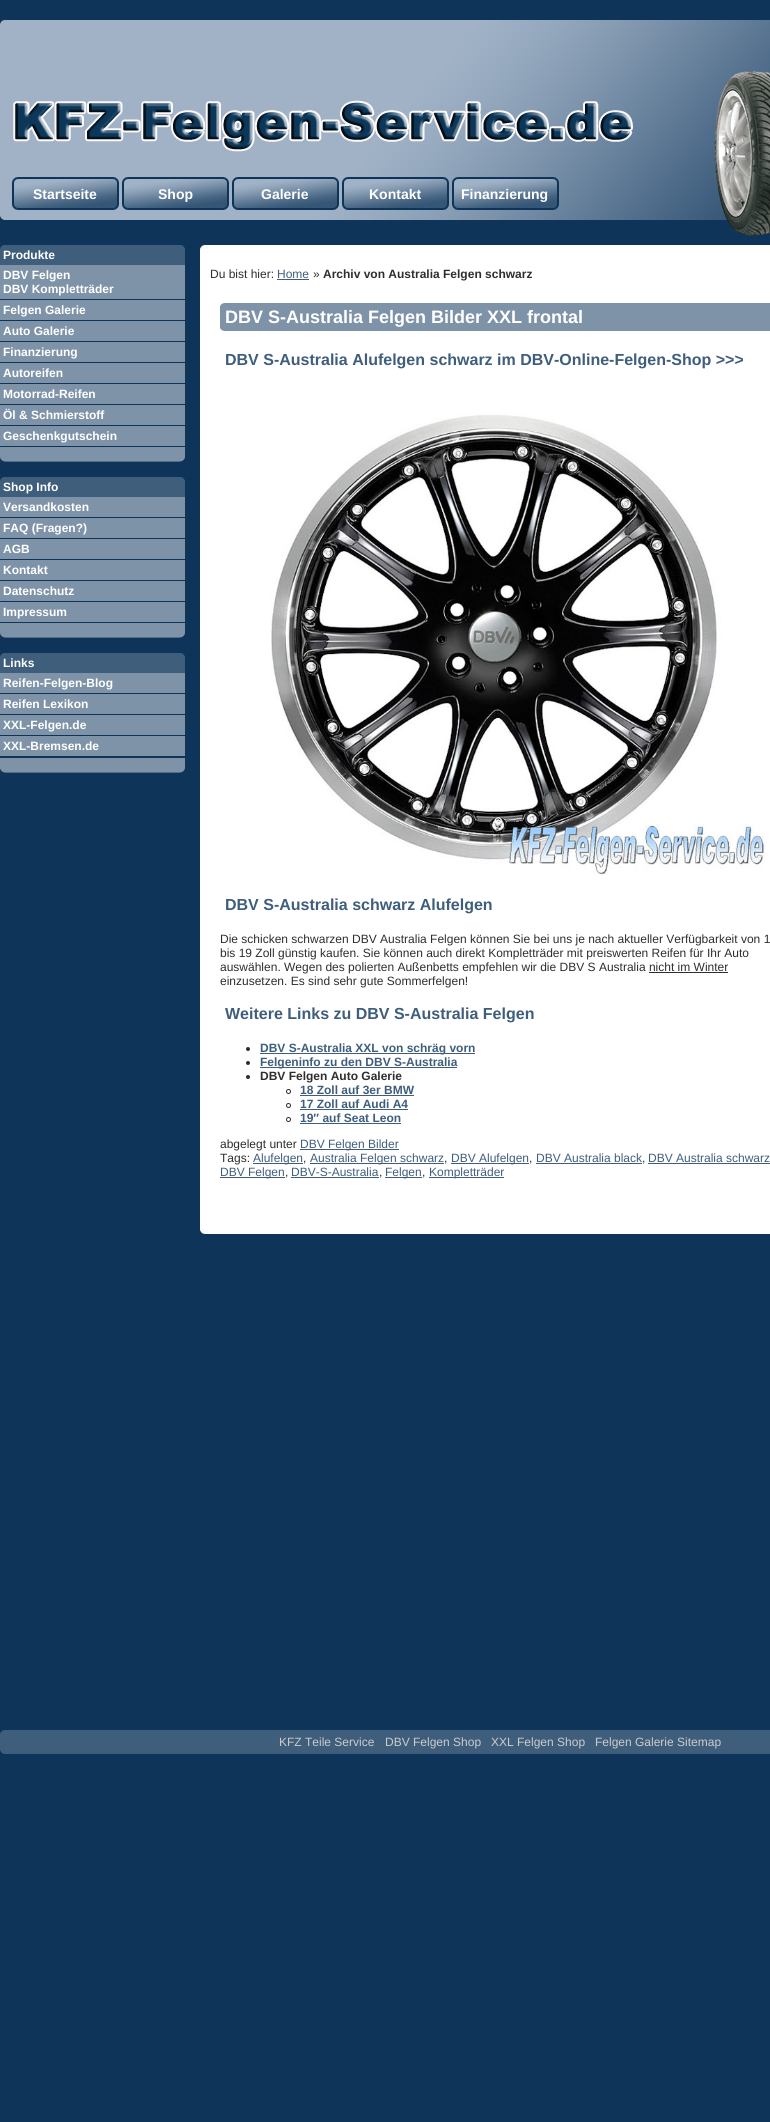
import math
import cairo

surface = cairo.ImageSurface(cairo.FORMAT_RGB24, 770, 2122)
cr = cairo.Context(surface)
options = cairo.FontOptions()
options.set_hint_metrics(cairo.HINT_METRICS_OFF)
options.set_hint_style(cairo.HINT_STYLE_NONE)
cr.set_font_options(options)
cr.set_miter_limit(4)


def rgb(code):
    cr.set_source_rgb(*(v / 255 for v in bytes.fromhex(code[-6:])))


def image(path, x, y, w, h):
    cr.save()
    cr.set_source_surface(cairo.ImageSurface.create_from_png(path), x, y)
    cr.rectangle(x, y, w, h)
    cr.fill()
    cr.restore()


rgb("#0e3459")
cr.paint()
image("img/1.png", 0, 16, 770, 208)
image("img/2.png", 13, 100, 620, 52)
image("img/3.png", 12, 177, 107, 33)
image("img/3.png", 122, 177, 107, 33)
image("img/4.png", 232, 177, 107, 33)
image("img/5.png", 342, 177, 107, 33)
image("img/6.png", 452, 177, 107, 33)
image("img/7.png", 714, 71, 56, 165)
image("img/8.png", 0, 245, 185, 20)
image("img/9.png", 0, 426, 185, 36)
for x, y, w, h, color in [
    (0, 265, 185, 34, "#7e93a8"),
    (0, 300, 185, 20, "#7e93a8"),
    (0, 321, 185, 20, "#7e93a8"),
    (0, 342, 185, 20, "#7e93a8"),
    (0, 363, 185, 20, "#7e93a8"),
    (0, 384, 185, 20, "#7e93a8"),
    (0, 405, 185, 20, "#7e93a8"),
    (0, 446, 185, 1, "#0e3459"),
]:
    rgb(color)
    cr.rectangle(x, y, w, h)
    cr.fill()
image("img/8.png", 0, 477, 185, 20)
image("img/9.png", 0, 602, 185, 36)
for x, y, w, h, color in [
    (0, 497, 185, 20, "#7e93a8"),
    (0, 518, 185, 20, "#7e93a8"),
    (0, 539, 185, 20, "#7e93a8"),
    (0, 560, 185, 20, "#7e93a8"),
    (0, 581, 185, 20, "#7e93a8"),
    (0, 622, 185, 1, "#0e3459"),
]:
    rgb(color)
    cr.rectangle(x, y, w, h)
    cr.fill()
image("img/8.png", 0, 653, 185, 20)
image("img/10.png", 0, 736, 185, 37)
for x, y, w, h, color in [
    (0, 673, 185, 20, "#7e93a8"),
    (0, 694, 185, 20, "#7e93a8"),
    (0, 715, 185, 20, "#7e93a8"),
    (0, 756, 185, 2, "#0e3459"),
    (200, 245, 570, 989, "#ffffff"),
]:
    rgb(color)
    cr.rectangle(x, y, w, h)
    cr.fill()
image("img/11.png", 200, 245, 8, 5)
rgb("#3f5e7b")
cr.rectangle(277, 279, 32, 1)
cr.fill()
image("img/12.png", 220, 303, 550, 28)
image("img/13.png", 270, 413, 496, 462)
rgb("#2e2e2e")
cr.rectangle(649, 972, 79, 1)
cr.fill()
cr.arc(248, 1049, 2, 0, 2 * math.pi)
cr.fill()
rgb("#3f5e7b")
cr.rectangle(260, 1053, 215, 1)
cr.fill()
rgb("#2e2e2e")
cr.arc(248, 1063, 2, 0, 2 * math.pi)
cr.fill()
rgb("#3f5e7b")
cr.rectangle(260, 1067, 197, 1)
cr.fill()
rgb("#2e2e2e")
cr.arc(248, 1077, 2, 0, 2 * math.pi)
cr.fill()
cr.arc(288.5, 1091.5, 2, 0, 2 * math.pi)
cr.set_line_width(1)
cr.stroke()
rgb("#3f5e7b")
cr.rectangle(300, 1095, 114, 1)
cr.fill()
cr.arc(288.5, 1105.5, 2, 0, 2 * math.pi)
rgb("#2e2e2e")
cr.stroke()
rgb("#3f5e7b")
cr.rectangle(300, 1109, 108, 1)
cr.fill()
cr.arc(288.5, 1119.5, 2, 0, 2 * math.pi)
rgb("#2e2e2e")
cr.stroke()
for x, y, w, h, color in [
    (300, 1123, 101, 1, "#3f5e7b"),
    (300, 1149, 99, 1, "#3f5e7b"),
    (253, 1163, 50, 1, "#3f5e7b"),
    (310, 1163, 134, 1, "#3f5e7b"),
    (451, 1163, 78, 1, "#3f5e7b"),
    (536, 1163, 106, 1, "#3f5e7b"),
    (648, 1163, 122, 1, "#3f5e7b"),
    (220, 1177, 65, 1, "#3f5e7b"),
    (291, 1177, 88, 1, "#3f5e7b"),
    (385, 1177, 37, 1, "#3f5e7b"),
    (429, 1177, 75, 1, "#3f5e7b"),
]:
    rgb(color)
    cr.rectangle(x, y, w, h)
    cr.fill()
image("img/14.png", 200, 1229, 8, 5)
image("img/15.png", 0, 1730, 770, 5)
cr.rectangle(0, 1735, 770, 14)
cr.fill()
image("img/16.png", 0, 1749, 770, 5)
cr.select_font_face("Liberation Sans", cairo.FONT_SLANT_NORMAL, cairo.FONT_WEIGHT_BOLD)
cr.set_font_size(14)
rgb("#ffffff")
for x, y, s in [
    (33, 199, "Startseite"),
    (158, 199, "Shop"),
    (261, 199, "Galerie"),
    (369, 199, "Kontakt"),
    (461, 199, "Finanzierung"),
]:
    cr.move_to(x, y)
    cr.show_text(s)
cr.set_font_size(12)
for x, y, s in [
    (3, 259, "Produkte"),
    (3, 279, "DBV Felgen"),
    (3, 293, "DBV Kompletträder"),
    (3, 314, "Felgen Galerie"),
    (3, 335, "Auto Galerie"),
    (3, 356, "Finanzierung"),
    (3, 377, "Autoreifen"),
    (3, 398, "Motorrad-Reifen"),
    (3, 419, "Öl & Schmierstoff"),
    (3, 440, "Geschenkgutschein"),
    (3, 491, "Shop Info"),
    (3, 511, "Versandkosten"),
    (3, 532, "FAQ (Fragen?)"),
    (3, 553, "AGB"),
    (3, 574, "Kontakt"),
    (3, 595, "Datenschutz"),
    (3, 616, "Impressum"),
    (3, 667, "Links"),
    (3, 687, "Reifen-Felgen-Blog"),
    (3, 708, "Reifen Lexikon"),
    (3, 729, "XXL-Felgen.de"),
    (3, 750, "XXL-Bremsen.de"),
]:
    cr.move_to(x, y)
    cr.show_text(s)
cr.select_font_face("Liberation Sans")
rgb("#2e2e2e")
cr.move_to(210, 278)
cr.show_text("Du bist hier:")
rgb("#3f5e7b")
cr.move_to(277, 278)
cr.show_text("Home")
rgb("#2e2e2e")
cr.move_to(313, 278)
cr.show_text("»")
cr.select_font_face("Liberation Sans", cairo.FONT_SLANT_NORMAL, cairo.FONT_WEIGHT_BOLD)
cr.move_to(323, 278)
cr.show_text("Archiv von Australia Felgen schwarz")
cr.set_font_size(18)
rgb("#ffffff")
cr.move_to(225, 323)
cr.show_text("DBV S-Australia Felgen Bilder XXL frontal")
cr.set_font_size(16)
rgb("#3f5e7b")
cr.move_to(225, 365)
cr.show_text("DBV S-Australia Alufelgen schwarz im DBV-Online-Felgen-Shop >>>")
cr.move_to(225, 910)
cr.show_text("DBV S-Australia schwarz Alufelgen")
cr.select_font_face("Liberation Sans")
cr.set_font_size(12)
rgb("#2e2e2e")
for x, y, s in [
    (220, 943, "Die schicken schwarzen DBV Australia Felgen können Sie bei uns je nach aktueller Verfügbarkeit von 1"),
    (220, 957, "bis 19 Zoll günstig kaufen. Sie können auch direkt Kompletträder mit preiswerten Reifen für Ihr Auto"),
    (220, 971, "auswählen. Wegen des polierten Außenbetts empfehlen wir die DBV S Australia nicht im Winter"),
    (220, 985, "einzusetzen. Es sind sehr gute Sommerfelgen!"),
]:
    cr.move_to(x, y)
    cr.show_text(s)
cr.select_font_face("Liberation Sans", cairo.FONT_SLANT_NORMAL, cairo.FONT_WEIGHT_BOLD)
cr.set_font_size(16)
rgb("#3f5e7b")
cr.move_to(225, 1019)
cr.show_text("Weitere Links zu DBV S-Australia Felgen")
cr.set_font_size(12)
cr.move_to(260, 1052)
cr.show_text("DBV S-Australia XXL von schräg vorn")
cr.move_to(260, 1066)
cr.show_text("Felgeninfo zu den DBV S-Australia")
rgb("#2e2e2e")
cr.move_to(260, 1080)
cr.show_text("DBV Felgen Auto Galerie")
rgb("#3f5e7b")
for x, y, s in [
    (300, 1094, "18 Zoll auf 3er BMW"),
    (300, 1108, "17 Zoll auf Audi A4"),
    (300, 1122, "19″ auf Seat Leon"),
]:
    cr.move_to(x, y)
    cr.show_text(s)
cr.select_font_face("Liberation Sans")
rgb("#2e2e2e")
cr.move_to(220, 1148)
cr.show_text("abgelegt unter")
rgb("#3f5e7b")
cr.move_to(300, 1148)
cr.show_text("DBV Felgen Bilder")
rgb("#2e2e2e")
cr.move_to(220, 1162)
cr.show_text("Tags:")
rgb("#3f5e7b")
cr.move_to(253, 1162)
cr.show_text("Alufelgen")
rgb("#2e2e2e")
cr.move_to(303, 1162)
cr.show_text(",")
rgb("#3f5e7b")
cr.move_to(310, 1162)
cr.show_text("Australia Felgen schwarz")
rgb("#2e2e2e")
cr.move_to(444, 1162)
cr.show_text(",")
rgb("#3f5e7b")
cr.move_to(451, 1162)
cr.show_text("DBV Alufelgen")
rgb("#2e2e2e")
cr.move_to(529, 1162)
cr.show_text(",")
rgb("#3f5e7b")
cr.move_to(536, 1162)
cr.show_text("DBV Australia black")
rgb("#2e2e2e")
cr.move_to(642, 1162)
cr.show_text(",")
rgb("#3f5e7b")
cr.move_to(648, 1162)
cr.show_text("DBV Australia schwarz")
cr.move_to(220, 1176)
cr.show_text("DBV Felgen")
rgb("#2e2e2e")
cr.move_to(285, 1176)
cr.show_text(",")
rgb("#3f5e7b")
cr.move_to(291, 1176)
cr.show_text("DBV-S-Australia")
rgb("#2e2e2e")
cr.move_to(379, 1176)
cr.show_text(",")
rgb("#3f5e7b")
cr.move_to(385, 1176)
cr.show_text("Felgen")
rgb("#2e2e2e")
cr.move_to(422, 1176)
cr.show_text(",")
rgb("#3f5e7b")
cr.move_to(429, 1176)
cr.show_text("Kompletträder")
rgb("#cccccc")
for x, y, s in [
    (279, 1746, "KFZ Teile Service"),
    (385, 1746, "DBV Felgen Shop"),
    (491, 1746, "XXL Felgen Shop"),
    (595, 1746, "Felgen Galerie Sitemap"),
]:
    cr.move_to(x, y)
    cr.show_text(s)
surface.write_to_png("page.png")
